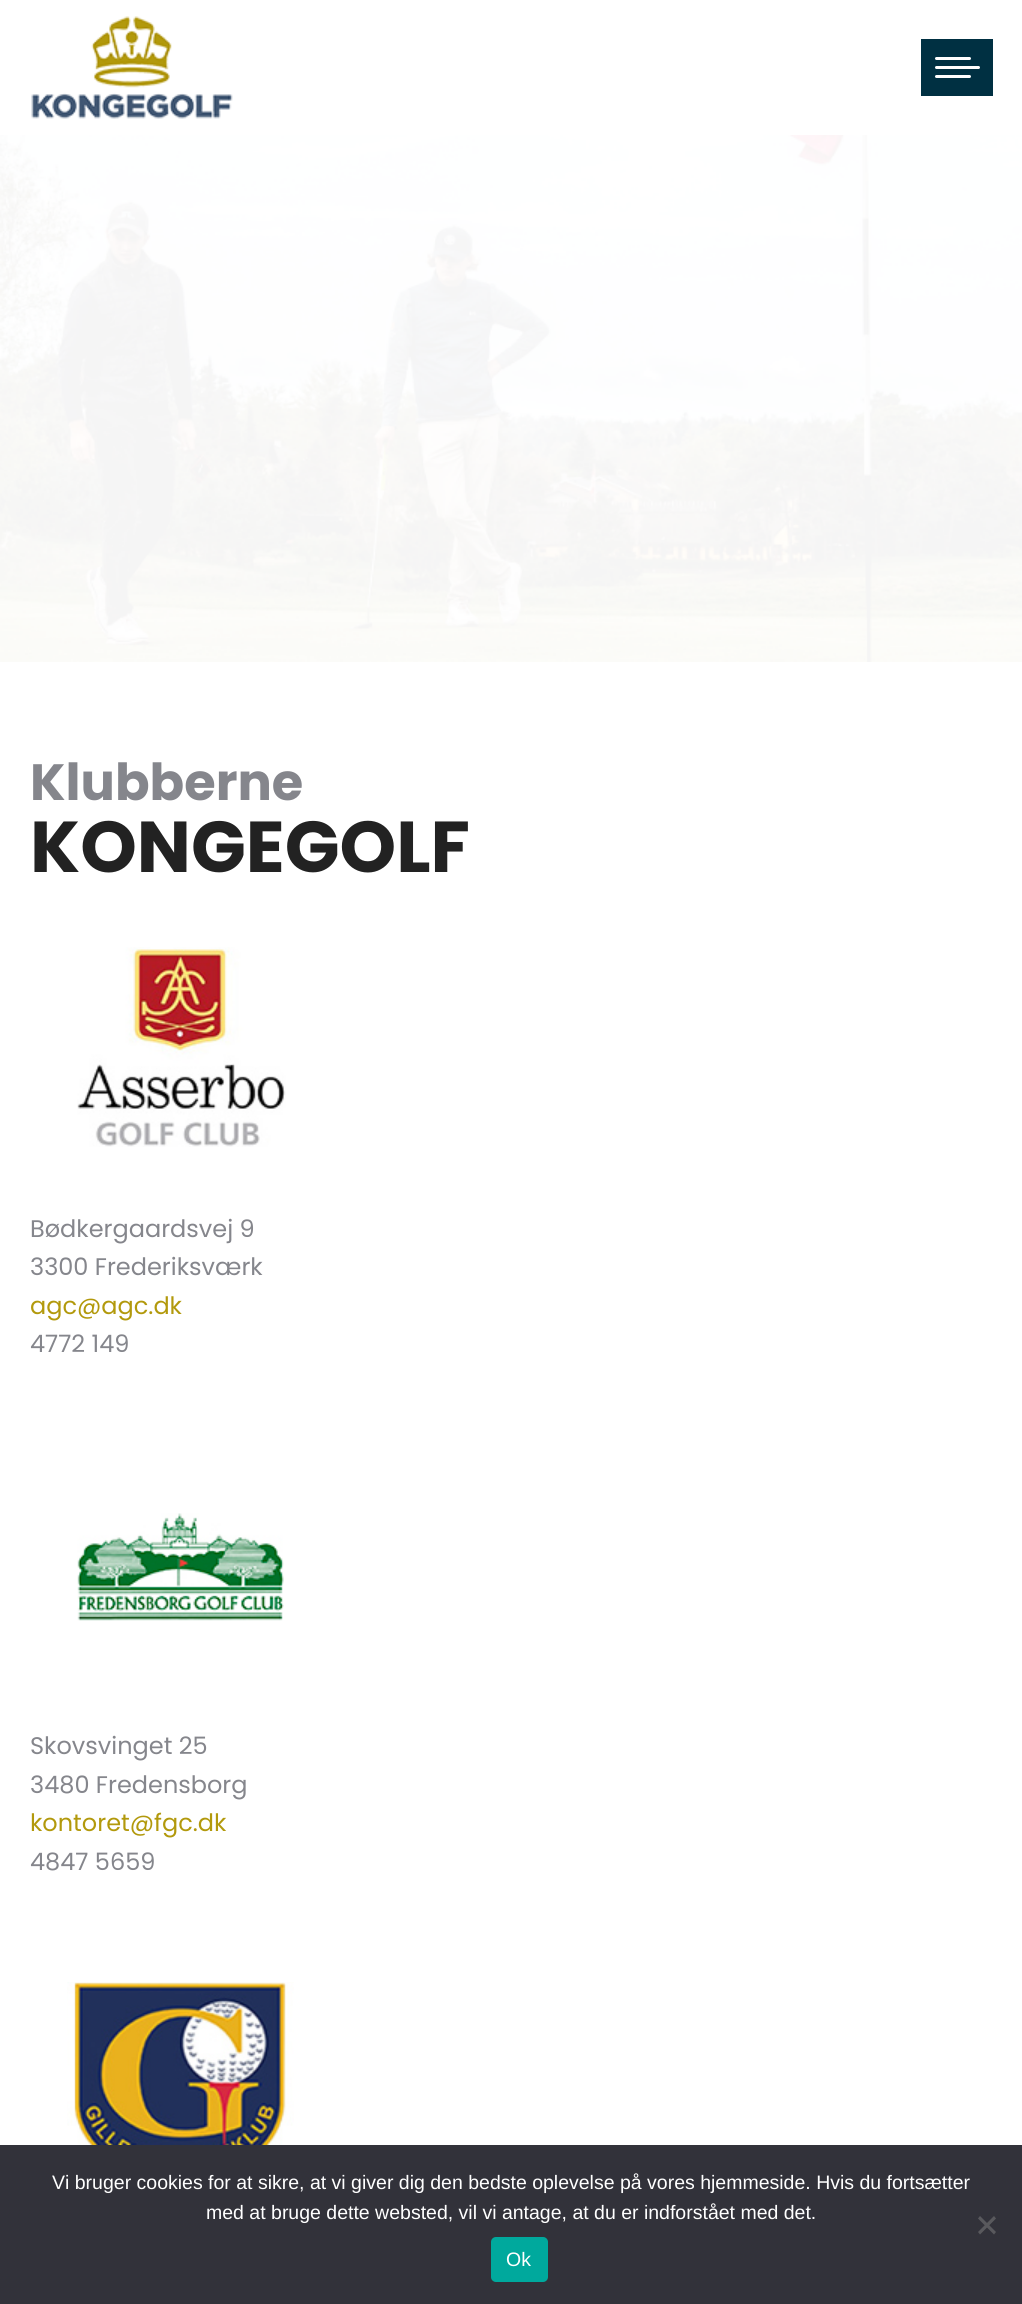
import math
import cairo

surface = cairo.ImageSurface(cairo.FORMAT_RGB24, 1022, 2304)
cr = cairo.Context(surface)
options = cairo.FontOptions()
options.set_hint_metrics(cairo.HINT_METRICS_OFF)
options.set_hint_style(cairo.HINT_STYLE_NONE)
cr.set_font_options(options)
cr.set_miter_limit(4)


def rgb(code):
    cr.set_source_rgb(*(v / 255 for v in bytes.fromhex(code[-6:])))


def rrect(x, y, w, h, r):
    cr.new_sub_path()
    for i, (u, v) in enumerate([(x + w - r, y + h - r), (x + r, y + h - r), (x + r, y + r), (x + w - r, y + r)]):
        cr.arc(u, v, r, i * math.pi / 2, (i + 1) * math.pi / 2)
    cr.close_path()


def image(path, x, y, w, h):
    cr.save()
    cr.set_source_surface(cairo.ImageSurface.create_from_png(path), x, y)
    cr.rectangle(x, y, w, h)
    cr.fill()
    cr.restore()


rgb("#ffffff")
cr.paint()
image("img/1.png", 31, 16, 202, 103)
rgb("#003042")
cr.rectangle(921, 39, 72, 57)
cr.fill()
rgb("#ffffff")
rrect(935, 57, 36, 3, 1.5)
cr.fill()
rrect(935, 66, 45, 3, 1.5)
cr.fill()
rrect(935, 75, 36, 3, 1.5)
cr.fill()
image("img/2.png", 0, 135, 1022, 527)
image("img/3.png", 77, 947, 209, 200)
image("img/4.png", 77, 1513, 207, 108)
image("img/5.png", 67, 1982, 227, 163)
rgb("#32323a")
cr.rectangle(0, 2145, 1022, 159)
cr.fill()
rgb("#59595d")
cr.new_path()
cr.move_to(994, 2216)
cr.line_to(996, 2218.5)
cr.line_to(980, 2234.5)
cr.line_to(978, 2232)
cr.close_path()
cr.fill()
cr.new_path()
cr.move_to(978, 2218.5)
cr.line_to(980, 2216)
cr.line_to(996, 2232)
cr.line_to(994, 2234.5)
cr.close_path()
cr.fill()
rgb("#00a99d")
rrect(491, 2237, 57, 45, 5)
cr.fill()
cr.select_font_face("Poppins", cairo.FONT_SLANT_NORMAL, cairo.FONT_WEIGHT_BOLD)
cr.set_font_size(51)
rgb("#85868c")
cr.move_to(30, 800)
cr.show_text("Klubberne")
cr.set_font_size(72)
rgb("#222222")
cr.move_to(30, 872)
cr.show_text("KONGEGOLF")
cr.select_font_face("Poppins")
cr.set_font_size(24)
rgb("#85868c")
cr.move_to(30, 1237)
cr.show_text("Bødkergaardsvej 9")
cr.move_to(30, 1275)
cr.show_text("3300 Frederiksværk")
rgb("#b2990c")
cr.move_to(30, 1314)
cr.show_text("agc@agc.dk")
rgb("#85868c")
for x, y, s in [
    (30, 1352, "4772 149"),
    (30, 1754, "Skovsvinget 25"),
    (30, 1793, "3480 Fredensborg"),
]:
    cr.move_to(x, y)
    cr.show_text(s)
rgb("#b2990c")
cr.move_to(30, 1831)
cr.show_text("kontoret@fgc.dk")
rgb("#85868c")
cr.move_to(30, 1870)
cr.show_text("4847 5659")
cr.select_font_face("Liberation Sans")
cr.set_font_size(19.5)
rgb("#ffffff")
for x, y, s in [
    (52, 2189, "Vi bruger cookies for at sikre, at vi giver dig den bedste oplevelse på vores hjemmeside. Hvis du fortsætter"),
    (206, 2219, "med at bruge dette websted, vil vi antage, at du er indforstået med det."),
    (506, 2266, "Ok"),
]:
    cr.move_to(x, y)
    cr.show_text(s)
surface.write_to_png("page.png")
